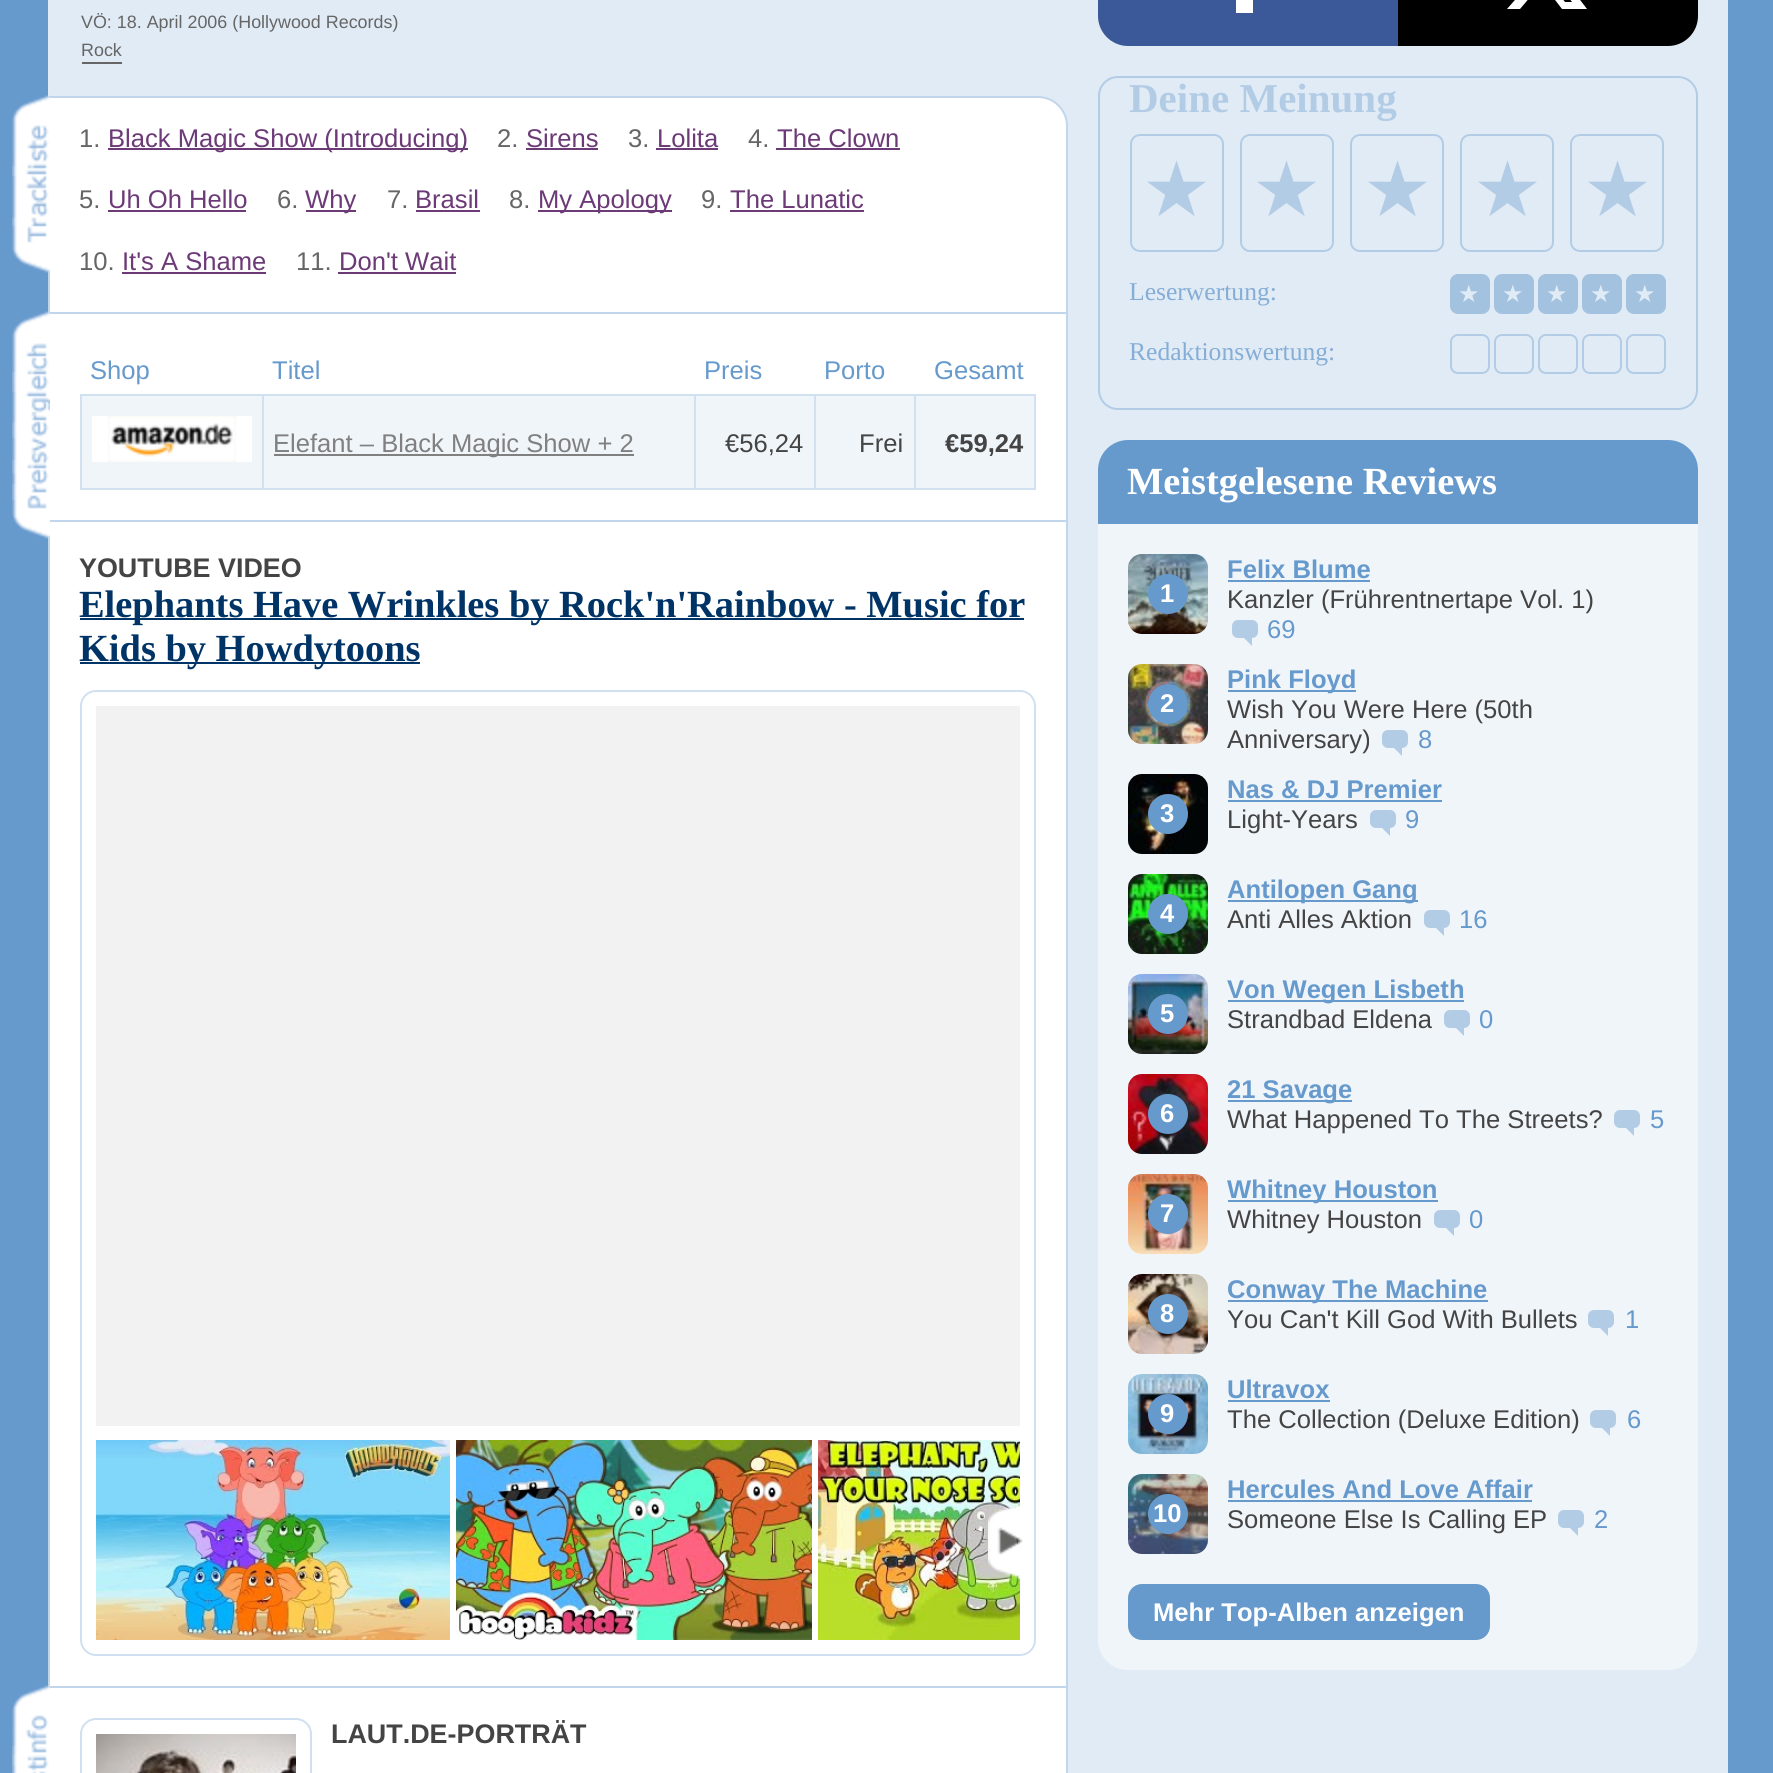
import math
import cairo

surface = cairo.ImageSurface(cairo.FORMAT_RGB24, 1773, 1773)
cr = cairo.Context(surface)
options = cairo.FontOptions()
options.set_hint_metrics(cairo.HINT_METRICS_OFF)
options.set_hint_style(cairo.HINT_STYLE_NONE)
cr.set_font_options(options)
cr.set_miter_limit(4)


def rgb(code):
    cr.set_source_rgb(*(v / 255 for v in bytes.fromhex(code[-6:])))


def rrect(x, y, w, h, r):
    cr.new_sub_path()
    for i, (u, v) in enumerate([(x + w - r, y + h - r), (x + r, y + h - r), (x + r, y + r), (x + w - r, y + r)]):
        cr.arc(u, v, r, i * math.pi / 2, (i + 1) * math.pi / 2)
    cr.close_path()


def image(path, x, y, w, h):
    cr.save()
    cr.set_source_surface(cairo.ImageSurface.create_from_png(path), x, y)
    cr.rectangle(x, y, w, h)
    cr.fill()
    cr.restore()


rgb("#6699cc")
cr.paint()
rgb("#e0ebf5")
cr.rectangle(48, 0, 1680, 1773)
cr.fill()
rgb("#666666")
cr.rectangle(82, 62, 40, 2)
cr.fill()
rgb("#ffffff")
cr.new_path()
cr.move_to(49, 97)
cr.line_to(1038, 97)
cr.curve_to(1054, 97, 1067, 110, 1067, 126)
cr.line_to(1067, 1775)
cr.curve_to(1067, 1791, 1054, 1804, 1038, 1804)
cr.line_to(49, 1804)
cr.close_path()
cr.fill_preserve()
rgb("#c2d6eb")
cr.stroke()
image("img/1.png", 12, 95, 38, 178)
for x, y, w, h, color in [
    (108, 148, 360, 2, "#6c3a77"),
    (526, 148, 72, 2, "#6c3a77"),
    (656, 148, 62, 2, "#6c3a77"),
    (776, 148, 124, 2, "#6c3a77"),
    (108, 210, 138, 2, "#6c3a77"),
    (306, 210, 50, 2, "#6c3a77"),
    (416, 210, 64, 2, "#6c3a77"),
    (538, 210, 134, 2, "#6c3a77"),
    (730, 210, 134, 2, "#6c3a77"),
    (122, 272, 144, 2, "#6c3a77"),
    (338, 272, 118, 2, "#6c3a77"),
    (50, 312, 1016, 2, "#c2d6eb"),
]:
    rgb(color)
    cr.rectangle(x, y, w, h)
    cr.fill()
image("img/2.png", 12, 311, 38, 228)
for x, y, w, h, color in [
    (82, 396, 180, 92, "#f0f5fa"),
    (914, 394, 122, 2, "#d1e1f0"),
    (1034, 394, 2, 96, "#d1e1f0"),
    (914, 488, 122, 2, "#d1e1f0"),
    (914, 394, 2, 96, "#d1e1f0"),
    (814, 394, 102, 2, "#d1e1f0"),
    (814, 488, 102, 2, "#d1e1f0"),
    (814, 394, 2, 96, "#d1e1f0"),
    (694, 394, 122, 2, "#d1e1f0"),
    (694, 488, 122, 2, "#d1e1f0"),
    (694, 394, 2, 96, "#d1e1f0"),
    (262, 394, 434, 2, "#d1e1f0"),
    (262, 488, 434, 2, "#d1e1f0"),
    (262, 394, 2, 96, "#d1e1f0"),
    (80, 394, 184, 2, "#d1e1f0"),
    (80, 488, 184, 2, "#d1e1f0"),
    (80, 394, 2, 96, "#d1e1f0"),
]:
    rgb(color)
    cr.rectangle(x, y, w, h)
    cr.fill()
image("img/3.png", 92, 416, 160, 46)
for x, y, w, h, color in [
    (264, 396, 430, 92, "#f0f5fa"),
    (274, 454, 360, 2, "#808080"),
    (696, 396, 118, 92, "#f0f5fa"),
    (816, 396, 98, 92, "#f0f5fa"),
    (916, 396, 118, 92, "#f0f5fa"),
    (50, 520, 1016, 2, "#c2d6eb"),
    (80, 618, 944, 2, "#003366"),
    (80, 662, 340, 2, "#003366"),
]:
    rgb(color)
    cr.rectangle(x, y, w, h)
    cr.fill()
rrect(81, 691, 954, 964, 15)
rgb("#d1e0f0")
cr.stroke()
rgb("#f2f2f2")
cr.rectangle(96, 706, 924, 720)
cr.fill()
image("img/4.png", 96, 1440, 354, 200)
image("img/5.png", 456, 1440, 356, 200)
image("img/6.png", 818, 1440, 202, 200)
image("img/7.png", 988, 1503, 35, 76)
rgb("#c2d6eb")
cr.rectangle(50, 1686, 1016, 2)
cr.fill()
image("img/8.png", 12, 1685, 38, 88)
rrect(81, 1719, 230, 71, 15)
rgb("#d1e0f0")
cr.stroke()
image("img/9.png", 96, 1734, 200, 39)
rgb("#3b5998")
cr.new_path()
cr.move_to(1128, -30)
cr.line_to(1398, -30)
cr.line_to(1398, 46)
cr.line_to(1128, 46)
cr.curve_to(1111.5, 46, 1098, 32.5, 1098, 16)
cr.line_to(1098, 0)
cr.curve_to(1098, -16.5, 1111.5, -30, 1128, -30)
cr.close_path()
cr.fill()
rgb("#ffffff")
cr.rectangle(1236, 0, 17, 13)
cr.fill()
rgb("#000000")
cr.new_path()
cr.move_to(1398, -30)
cr.line_to(1668, -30)
cr.curve_to(1684.5, -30, 1698, -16.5, 1698, 0)
cr.line_to(1698, 16)
cr.curve_to(1698, 32.5, 1684.5, 46, 1668, 46)
cr.line_to(1398, 46)
cr.close_path()
cr.fill()
rgb("#ffffff")
cr.new_path()
cr.move_to(1570, -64)
cr.line_to(1582, -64)
cr.line_to(1555, -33)
cr.line_to(1587, 9)
cr.line_to(1562, 9)
cr.line_to(1542, -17)
cr.line_to(1520, 9)
cr.line_to(1507, 9)
cr.line_to(1536, -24)
cr.line_to(1506, -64)
cr.line_to(1531, -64)
cr.line_to(1549, -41)
cr.close_path()
cr.move_to(1565, 2)
cr.line_to(1572, 2)
cr.line_to(1528, -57)
cr.line_to(1520, -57)
cr.close_path()
cr.fill()
rrect(1099, 77, 598, 332, 19)
rgb("#b3cce6")
cr.stroke()
rrect(1131, 135, 92, 116, 9)
cr.stroke()
rrect(1241, 135, 92, 116, 9)
cr.stroke()
rrect(1351, 135, 92, 116, 9)
cr.stroke()
rrect(1461, 135, 92, 116, 9)
cr.stroke()
rrect(1571, 135, 92, 116, 9)
cr.stroke()
rgb("#a3c2e0")
rrect(1451, 275, 38, 38, 7)
cr.fill_preserve()
cr.stroke()
rrect(1495, 275, 38, 38, 7)
cr.fill_preserve()
cr.stroke()
rrect(1539, 275, 38, 38, 7)
cr.fill_preserve()
cr.stroke()
rrect(1583, 275, 38, 38, 7)
cr.fill_preserve()
cr.stroke()
rrect(1627, 275, 38, 38, 7)
cr.fill_preserve()
cr.stroke()
rrect(1451, 335, 38, 38, 7)
rgb("#b3cce6")
cr.stroke()
rrect(1495, 335, 38, 38, 7)
cr.stroke()
rrect(1539, 335, 38, 38, 7)
cr.stroke()
rrect(1583, 335, 38, 38, 7)
cr.stroke()
rrect(1627, 335, 38, 38, 7)
cr.stroke()
rgb("#f0f5fa")
rrect(1098, 440, 600, 1230, 30)
cr.fill()
rgb("#6699cc")
cr.new_path()
cr.move_to(1128, 440)
cr.line_to(1668, 440)
cr.curve_to(1684.5, 440, 1698, 453.5, 1698, 470)
cr.line_to(1698, 524)
cr.line_to(1098, 524)
cr.line_to(1098, 470)
cr.curve_to(1098, 453.5, 1111.5, 440, 1128, 440)
cr.close_path()
cr.fill()
image("img/10.png", 1128, 554, 80, 80)
cr.arc(1168, 594, 20, 0, 2 * math.pi)
cr.fill()
cr.rectangle(1228, 580, 142, 2)
cr.fill()
rgb("#b3cce6")
rrect(1232, 620, 26, 18, 6)
cr.fill()
cr.new_path()
cr.move_to(1252, 638)
cr.line_to(1252, 646)
cr.line_to(1244, 638)
cr.close_path()
cr.fill()
image("img/11.png", 1128, 664, 80, 80)
rgb("#6699cc")
cr.arc(1168, 704, 20, 0, 2 * math.pi)
cr.fill()
cr.rectangle(1228, 690, 128, 2)
cr.fill()
rgb("#b3cce6")
rrect(1382, 730, 26, 18, 6)
cr.fill()
cr.new_path()
cr.move_to(1402, 748)
cr.line_to(1402, 756)
cr.line_to(1394, 748)
cr.close_path()
cr.fill()
image("img/12.png", 1128, 774, 80, 80)
rgb("#6699cc")
cr.arc(1168, 814, 20, 0, 2 * math.pi)
cr.fill()
cr.rectangle(1228, 800, 214, 2)
cr.fill()
rgb("#b3cce6")
rrect(1370, 810, 26, 18, 6)
cr.fill()
cr.new_path()
cr.move_to(1390, 828)
cr.line_to(1390, 836)
cr.line_to(1382, 828)
cr.close_path()
cr.fill()
image("img/13.png", 1128, 874, 80, 80)
rgb("#6699cc")
cr.arc(1168, 914, 20, 0, 2 * math.pi)
cr.fill()
cr.rectangle(1228, 900, 190, 2)
cr.fill()
rgb("#b3cce6")
rrect(1424, 910, 26, 18, 6)
cr.fill()
cr.new_path()
cr.move_to(1444, 928)
cr.line_to(1444, 936)
cr.line_to(1436, 928)
cr.close_path()
cr.fill()
image("img/14.png", 1128, 974, 80, 80)
rgb("#6699cc")
cr.arc(1168, 1014, 20, 0, 2 * math.pi)
cr.fill()
cr.rectangle(1228, 1000, 236, 2)
cr.fill()
rgb("#b3cce6")
rrect(1444, 1010, 26, 18, 6)
cr.fill()
cr.new_path()
cr.move_to(1464, 1028)
cr.line_to(1464, 1036)
cr.line_to(1456, 1028)
cr.close_path()
cr.fill()
image("img/15.png", 1128, 1074, 80, 80)
rgb("#6699cc")
cr.arc(1168, 1114, 20, 0, 2 * math.pi)
cr.fill()
cr.rectangle(1228, 1100, 124, 2)
cr.fill()
rgb("#b3cce6")
rrect(1614, 1110, 26, 18, 6)
cr.fill()
cr.new_path()
cr.move_to(1634, 1128)
cr.line_to(1634, 1136)
cr.line_to(1626, 1128)
cr.close_path()
cr.fill()
image("img/16.png", 1128, 1174, 80, 80)
rgb("#6699cc")
cr.arc(1168, 1214, 20, 0, 2 * math.pi)
cr.fill()
cr.rectangle(1228, 1200, 210, 2)
cr.fill()
rgb("#b3cce6")
rrect(1434, 1210, 26, 18, 6)
cr.fill()
cr.new_path()
cr.move_to(1454, 1228)
cr.line_to(1454, 1236)
cr.line_to(1446, 1228)
cr.close_path()
cr.fill()
image("img/17.png", 1128, 1274, 80, 80)
rgb("#6699cc")
cr.arc(1168, 1314, 20, 0, 2 * math.pi)
cr.fill()
cr.rectangle(1228, 1300, 260, 2)
cr.fill()
rgb("#b3cce6")
rrect(1588, 1310, 26, 18, 6)
cr.fill()
cr.new_path()
cr.move_to(1608, 1328)
cr.line_to(1608, 1336)
cr.line_to(1600, 1328)
cr.close_path()
cr.fill()
image("img/18.png", 1128, 1374, 80, 80)
rgb("#6699cc")
cr.arc(1168, 1414, 20, 0, 2 * math.pi)
cr.fill()
cr.rectangle(1228, 1400, 102, 2)
cr.fill()
rgb("#b3cce6")
rrect(1590, 1410, 26, 18, 6)
cr.fill()
cr.new_path()
cr.move_to(1610, 1428)
cr.line_to(1610, 1436)
cr.line_to(1602, 1428)
cr.close_path()
cr.fill()
image("img/19.png", 1128, 1474, 80, 80)
rgb("#6699cc")
cr.arc(1168, 1514, 20, 0, 2 * math.pi)
cr.fill()
cr.rectangle(1228, 1500, 304, 2)
cr.fill()
rgb("#b3cce6")
rrect(1558, 1510, 26, 18, 6)
cr.fill()
cr.new_path()
cr.move_to(1578, 1528)
cr.line_to(1578, 1536)
cr.line_to(1570, 1528)
cr.close_path()
cr.fill()
rgb("#6699cc")
rrect(1128, 1584, 362, 56, 14)
cr.fill()
cr.select_font_face("Liberation Sans")
cr.set_font_size(17.9)
rgb("#666666")
cr.move_to(81, 28)
cr.show_text("VÖ: 18. April 2006 (Hollywood Records)")
cr.move_to(81, 56)
cr.show_text("Rock")
cr.set_font_size(25.6)
cr.move_to(79, 147)
cr.show_text("1.")
rgb("#6c3a77")
cr.move_to(108, 147)
cr.show_text("Black Magic Show (Introducing)")
rgb("#666666")
cr.move_to(497, 147)
cr.show_text("2.")
rgb("#6c3a77")
cr.move_to(526, 147)
cr.show_text("Sirens")
rgb("#666666")
cr.move_to(628, 147)
cr.show_text("3.")
rgb("#6c3a77")
cr.move_to(657, 147)
cr.show_text("Lolita")
rgb("#666666")
cr.move_to(748, 147)
cr.show_text("4.")
rgb("#6c3a77")
cr.move_to(777, 147)
cr.show_text("The Clown")
rgb("#666666")
cr.move_to(79, 208)
cr.show_text("5.")
rgb("#6c3a77")
cr.move_to(108, 208)
cr.show_text("Uh Oh Hello")
rgb("#666666")
cr.move_to(277, 208)
cr.show_text("6.")
rgb("#6c3a77")
cr.move_to(305, 208)
cr.show_text("Why")
rgb("#666666")
cr.move_to(387, 208)
cr.show_text("7.")
rgb("#6c3a77")
cr.move_to(415, 208)
cr.show_text("Brasil")
rgb("#666666")
cr.move_to(509, 208)
cr.show_text("8.")
rgb("#6c3a77")
cr.move_to(538, 208)
cr.show_text("My Apology")
rgb("#666666")
cr.move_to(701, 208)
cr.show_text("9.")
rgb("#6c3a77")
cr.move_to(730, 208)
cr.show_text("The Lunatic")
rgb("#666666")
cr.move_to(79, 270)
cr.show_text("10.")
rgb("#6c3a77")
cr.move_to(122, 270)
cr.show_text("It's A Shame")
rgb("#666666")
cr.move_to(296, 270)
cr.show_text("11.")
rgb("#6c3a77")
cr.move_to(339, 270)
cr.show_text("Don't Wait")
rgb("#6699cc")
for x, y, s in [
    (90, 379, "Shop"),
    (272, 379, "Titel"),
    (704, 379, "Preis"),
    (824, 379, "Porto"),
    (934, 379, "Gesamt"),
]:
    cr.move_to(x, y)
    cr.show_text(s)
rgb("#808080")
cr.move_to(273, 452)
cr.show_text("Elefant – Black Magic Show + 2")
rgb("#444444")
cr.move_to(725, 452)
cr.show_text("€56,24")
cr.move_to(859, 452)
cr.show_text("Frei")
cr.select_font_face("Liberation Sans", cairo.FONT_SLANT_NORMAL, cairo.FONT_WEIGHT_BOLD)
cr.move_to(945, 452)
cr.show_text("€59,24")
cr.set_font_size(26.9)
cr.move_to(79, 577)
cr.show_text("YOUTUBE VIDEO")
cr.select_font_face("Liberation Serif", cairo.FONT_SLANT_NORMAL, cairo.FONT_WEIGHT_BOLD)
cr.set_font_size(38.4)
rgb("#003366")
cr.move_to(79, 617)
cr.show_text("Elephants Have Wrinkles by Rock'n'Rainbow - Music for")
cr.move_to(79, 661)
cr.show_text("Kids by Howdytoons")
cr.select_font_face("Liberation Sans", cairo.FONT_SLANT_NORMAL, cairo.FONT_WEIGHT_BOLD)
cr.set_font_size(26.9)
rgb("#444444")
cr.move_to(331, 1743)
cr.show_text("LAUT.DE-PORTRÄT")
cr.select_font_face("Liberation Serif", cairo.FONT_SLANT_NORMAL, cairo.FONT_WEIGHT_BOLD)
cr.set_font_size(41)
rgb("#b3cce6")
cr.move_to(1129, 112)
cr.show_text("Deine Meinung")
cr.select_font_face("DejaVu Sans")
cr.set_font_size(77)
for x, y, s in [
    (1142, 216, "★"),
    (1252, 216, "★"),
    (1363, 216, "★"),
    (1473, 216, "★"),
    (1583, 216, "★"),
]:
    cr.move_to(x, y)
    cr.show_text(s)
cr.select_font_face("Liberation Serif")
cr.set_font_size(25.6)
rgb("#85add6")
cr.move_to(1129, 300)
cr.show_text("Leserwertung:")
cr.select_font_face("DejaVu Sans")
cr.set_font_size(24)
rgb("#e0ebf5")
for x, y, s in [
    (1458, 302, "★"),
    (1502, 302, "★"),
    (1546, 302, "★"),
    (1590, 302, "★"),
    (1634, 302, "★"),
]:
    cr.move_to(x, y)
    cr.show_text(s)
cr.select_font_face("Liberation Serif")
cr.set_font_size(25.6)
rgb("#85add6")
cr.move_to(1129, 360)
cr.show_text("Redaktionswertung:")
cr.select_font_face("Liberation Serif", cairo.FONT_SLANT_NORMAL, cairo.FONT_WEIGHT_BOLD)
cr.set_font_size(38.4)
rgb("#ffffff")
cr.move_to(1127, 494)
cr.show_text("Meistgelesene Reviews")
cr.select_font_face("Liberation Sans", cairo.FONT_SLANT_NORMAL, cairo.FONT_WEIGHT_BOLD)
cr.set_font_size(25.6)
cr.move_to(1160, 602)
cr.show_text("1")
rgb("#6699cc")
cr.move_to(1227, 578)
cr.show_text("Felix Blume")
cr.select_font_face("Liberation Sans")
rgb("#444444")
cr.move_to(1227, 608)
cr.show_text("Kanzler (Frührentnertape Vol. 1)")
rgb("#6699cc")
cr.move_to(1267, 638)
cr.show_text("69")
cr.select_font_face("Liberation Sans", cairo.FONT_SLANT_NORMAL, cairo.FONT_WEIGHT_BOLD)
rgb("#ffffff")
cr.move_to(1160, 712)
cr.show_text("2")
rgb("#6699cc")
cr.move_to(1227, 688)
cr.show_text("Pink Floyd")
cr.select_font_face("Liberation Sans")
rgb("#444444")
cr.move_to(1227, 718)
cr.show_text("Wish You Were Here (50th")
cr.move_to(1227, 748)
cr.show_text("Anniversary)")
rgb("#6699cc")
cr.move_to(1418, 748)
cr.show_text("8")
cr.select_font_face("Liberation Sans", cairo.FONT_SLANT_NORMAL, cairo.FONT_WEIGHT_BOLD)
rgb("#ffffff")
cr.move_to(1160, 822)
cr.show_text("3")
rgb("#6699cc")
cr.move_to(1227, 798)
cr.show_text("Nas & DJ Premier")
cr.select_font_face("Liberation Sans")
rgb("#444444")
cr.move_to(1227, 828)
cr.show_text("Light-Years")
rgb("#6699cc")
cr.move_to(1405, 828)
cr.show_text("9")
cr.select_font_face("Liberation Sans", cairo.FONT_SLANT_NORMAL, cairo.FONT_WEIGHT_BOLD)
rgb("#ffffff")
cr.move_to(1160, 922)
cr.show_text("4")
rgb("#6699cc")
cr.move_to(1227, 898)
cr.show_text("Antilopen Gang")
cr.select_font_face("Liberation Sans")
rgb("#444444")
cr.move_to(1227, 928)
cr.show_text("Anti Alles Aktion")
rgb("#6699cc")
cr.move_to(1459, 928)
cr.show_text("16")
cr.select_font_face("Liberation Sans", cairo.FONT_SLANT_NORMAL, cairo.FONT_WEIGHT_BOLD)
rgb("#ffffff")
cr.move_to(1160, 1022)
cr.show_text("5")
rgb("#6699cc")
cr.move_to(1227, 998)
cr.show_text("Von Wegen Lisbeth")
cr.select_font_face("Liberation Sans")
rgb("#444444")
cr.move_to(1227, 1028)
cr.show_text("Strandbad Eldena")
rgb("#6699cc")
cr.move_to(1479, 1028)
cr.show_text("0")
cr.select_font_face("Liberation Sans", cairo.FONT_SLANT_NORMAL, cairo.FONT_WEIGHT_BOLD)
rgb("#ffffff")
cr.move_to(1160, 1122)
cr.show_text("6")
rgb("#6699cc")
cr.move_to(1227, 1098)
cr.show_text("21 Savage")
cr.select_font_face("Liberation Sans")
rgb("#444444")
cr.move_to(1227, 1128)
cr.show_text("What Happened To The Streets?")
rgb("#6699cc")
cr.move_to(1650, 1128)
cr.show_text("5")
cr.select_font_face("Liberation Sans", cairo.FONT_SLANT_NORMAL, cairo.FONT_WEIGHT_BOLD)
rgb("#ffffff")
cr.move_to(1160, 1222)
cr.show_text("7")
rgb("#6699cc")
cr.move_to(1227, 1198)
cr.show_text("Whitney Houston")
cr.select_font_face("Liberation Sans")
rgb("#444444")
cr.move_to(1227, 1228)
cr.show_text("Whitney Houston")
rgb("#6699cc")
cr.move_to(1469, 1228)
cr.show_text("0")
cr.select_font_face("Liberation Sans", cairo.FONT_SLANT_NORMAL, cairo.FONT_WEIGHT_BOLD)
rgb("#ffffff")
cr.move_to(1160, 1322)
cr.show_text("8")
rgb("#6699cc")
cr.move_to(1227, 1298)
cr.show_text("Conway The Machine")
cr.select_font_face("Liberation Sans")
rgb("#444444")
cr.move_to(1227, 1328)
cr.show_text("You Can't Kill God With Bullets")
rgb("#6699cc")
cr.move_to(1625, 1328)
cr.show_text("1")
cr.select_font_face("Liberation Sans", cairo.FONT_SLANT_NORMAL, cairo.FONT_WEIGHT_BOLD)
rgb("#ffffff")
cr.move_to(1160, 1422)
cr.show_text("9")
rgb("#6699cc")
cr.move_to(1227, 1398)
cr.show_text("Ultravox")
cr.select_font_face("Liberation Sans")
rgb("#444444")
cr.move_to(1227, 1428)
cr.show_text("The Collection (Deluxe Edition)")
rgb("#6699cc")
cr.move_to(1627, 1428)
cr.show_text("6")
cr.select_font_face("Liberation Sans", cairo.FONT_SLANT_NORMAL, cairo.FONT_WEIGHT_BOLD)
rgb("#ffffff")
cr.move_to(1153, 1522)
cr.show_text("10")
rgb("#6699cc")
cr.move_to(1227, 1498)
cr.show_text("Hercules And Love Affair")
cr.select_font_face("Liberation Sans")
rgb("#444444")
cr.move_to(1227, 1528)
cr.show_text("Someone Else Is Calling EP")
rgb("#6699cc")
cr.move_to(1594, 1528)
cr.show_text("2")
cr.select_font_face("Liberation Sans", cairo.FONT_SLANT_NORMAL, cairo.FONT_WEIGHT_BOLD)
rgb("#ffffff")
cr.move_to(1153, 1621)
cr.show_text("Mehr Top-Alben anzeigen")
surface.write_to_png("page.png")
